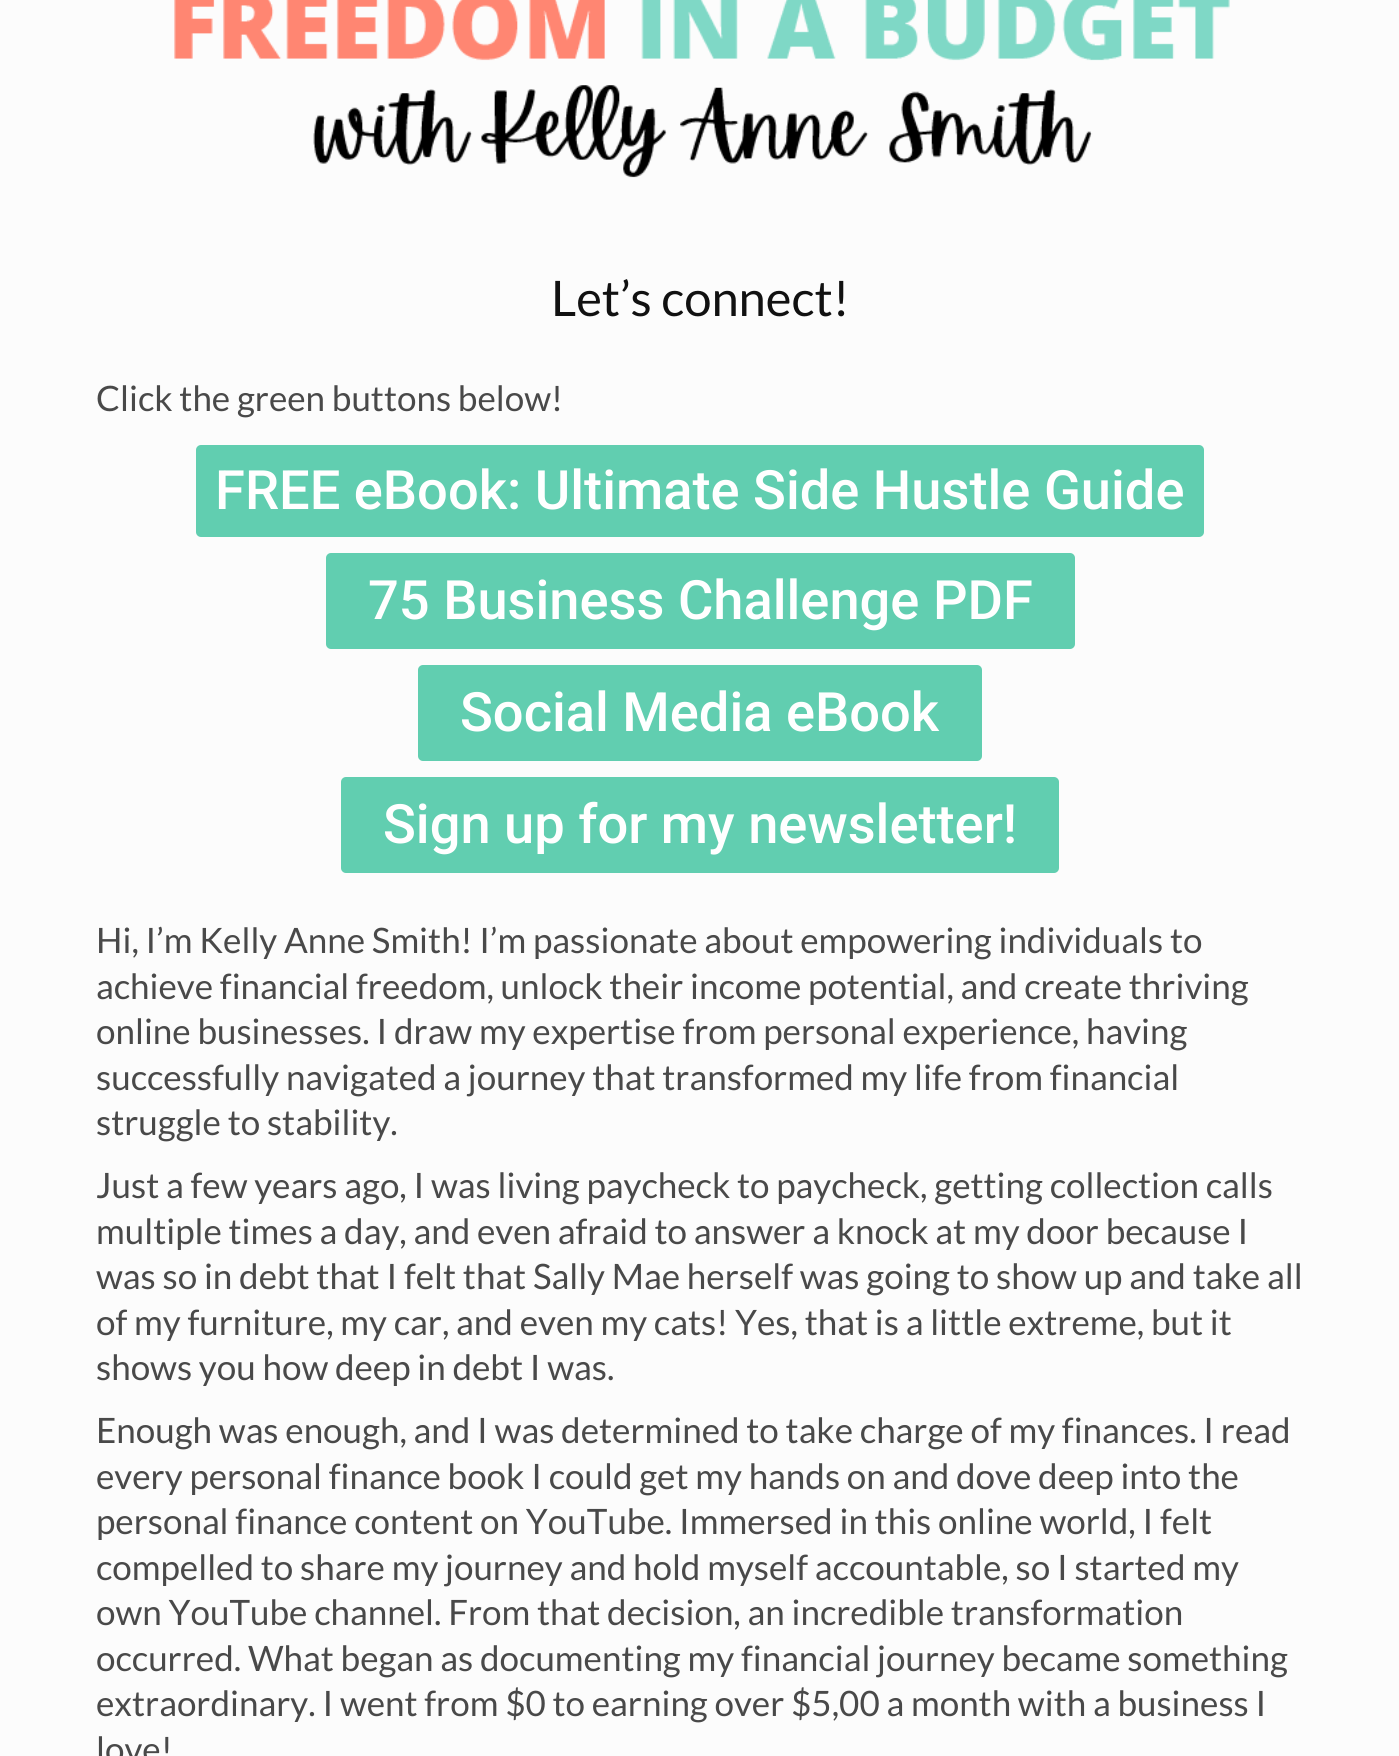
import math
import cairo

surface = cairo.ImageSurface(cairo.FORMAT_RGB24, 1399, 1756)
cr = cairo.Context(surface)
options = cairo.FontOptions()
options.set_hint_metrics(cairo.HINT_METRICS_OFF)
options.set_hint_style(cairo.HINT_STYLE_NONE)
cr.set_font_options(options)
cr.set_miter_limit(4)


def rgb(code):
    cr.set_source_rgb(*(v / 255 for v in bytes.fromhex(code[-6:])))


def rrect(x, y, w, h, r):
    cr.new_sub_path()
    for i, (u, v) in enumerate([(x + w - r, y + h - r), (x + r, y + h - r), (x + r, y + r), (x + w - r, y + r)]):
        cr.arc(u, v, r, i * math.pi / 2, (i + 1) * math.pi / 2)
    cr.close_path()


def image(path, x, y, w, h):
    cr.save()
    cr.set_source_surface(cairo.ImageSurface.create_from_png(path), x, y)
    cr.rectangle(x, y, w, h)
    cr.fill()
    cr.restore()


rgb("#fcfcfc")
cr.paint()
image("img/1.png", 174, 0, 1056, 178)
rgb("#61ceb0")
rrect(196, 445, 1008, 92, 5)
cr.fill()
rrect(326, 553, 749, 96, 5)
cr.fill()
rrect(418, 665, 564, 96, 5)
cr.fill()
rrect(341, 777, 718, 96, 5)
cr.fill()
cr.select_font_face("Lato")
cr.set_font_size(49)
rgb("#111111")
cr.move_to(551, 316)
cr.show_text("Let’s connect!")
cr.set_font_size(35)
rgb("#494949")
cr.move_to(96, 411)
cr.show_text("Click the green buttons below!")
cr.select_font_face("Roboto Medium")
cr.set_font_size(54.25)
rgb("#ffffff")
for x, y, s in [
    (215, 509, "FREE eBook: Ultimate Side Hustle Guide"),
    (368, 619, "75 Business Challenge PDF"),
    (460, 731, "Social Media eBook"),
    (383, 843, "Sign up for my newsletter!"),
]:
    cr.move_to(x, y)
    cr.show_text(s)
cr.select_font_face("Lato")
cr.set_font_size(35)
rgb("#494949")
for x, y, s in [
    (96, 953, "Hi, I’m Kelly Anne Smith! I’m passionate about empowering individuals to"),
    (96, 999, "achieve financial freedom, unlock their income potential, and create thriving"),
    (96, 1044, "online businesses. I draw my expertise from personal experience, having"),
    (96, 1090, "successfully navigated a journey that transformed my life from financial"),
    (96, 1135, "struggle to stability."),
    (96, 1198, "Just a few years ago, I was living paycheck to paycheck, getting collection calls"),
    (96, 1244, "multiple times a day, and even afraid to answer a knock at my door because I"),
    (96, 1289, "was so in debt that I felt that Sally Mae herself was going to show up and take all"),
    (96, 1335, "of my furniture, my car, and even my cats! Yes, that is a little extreme, but it"),
    (96, 1380, "shows you how deep in debt I was."),
    (96, 1443, "Enough was enough, and I was determined to take charge of my finances. I read"),
    (96, 1489, "every personal finance book I could get my hands on and dove deep into the"),
    (96, 1534, "personal finance content on YouTube. Immersed in this online world, I felt"),
    (96, 1580, "compelled to share my journey and hold myself accountable, so I started my"),
    (96, 1625, "own YouTube channel. From that decision, an incredible transformation"),
    (96, 1671, "occurred. What began as documenting my financial journey became something"),
    (96, 1716, "extraordinary. I went from $0 to earning over $5,00 a month with a business I"),
    (96, 1762, "love!"),
]:
    cr.move_to(x, y)
    cr.show_text(s)
surface.write_to_png("page.png")
